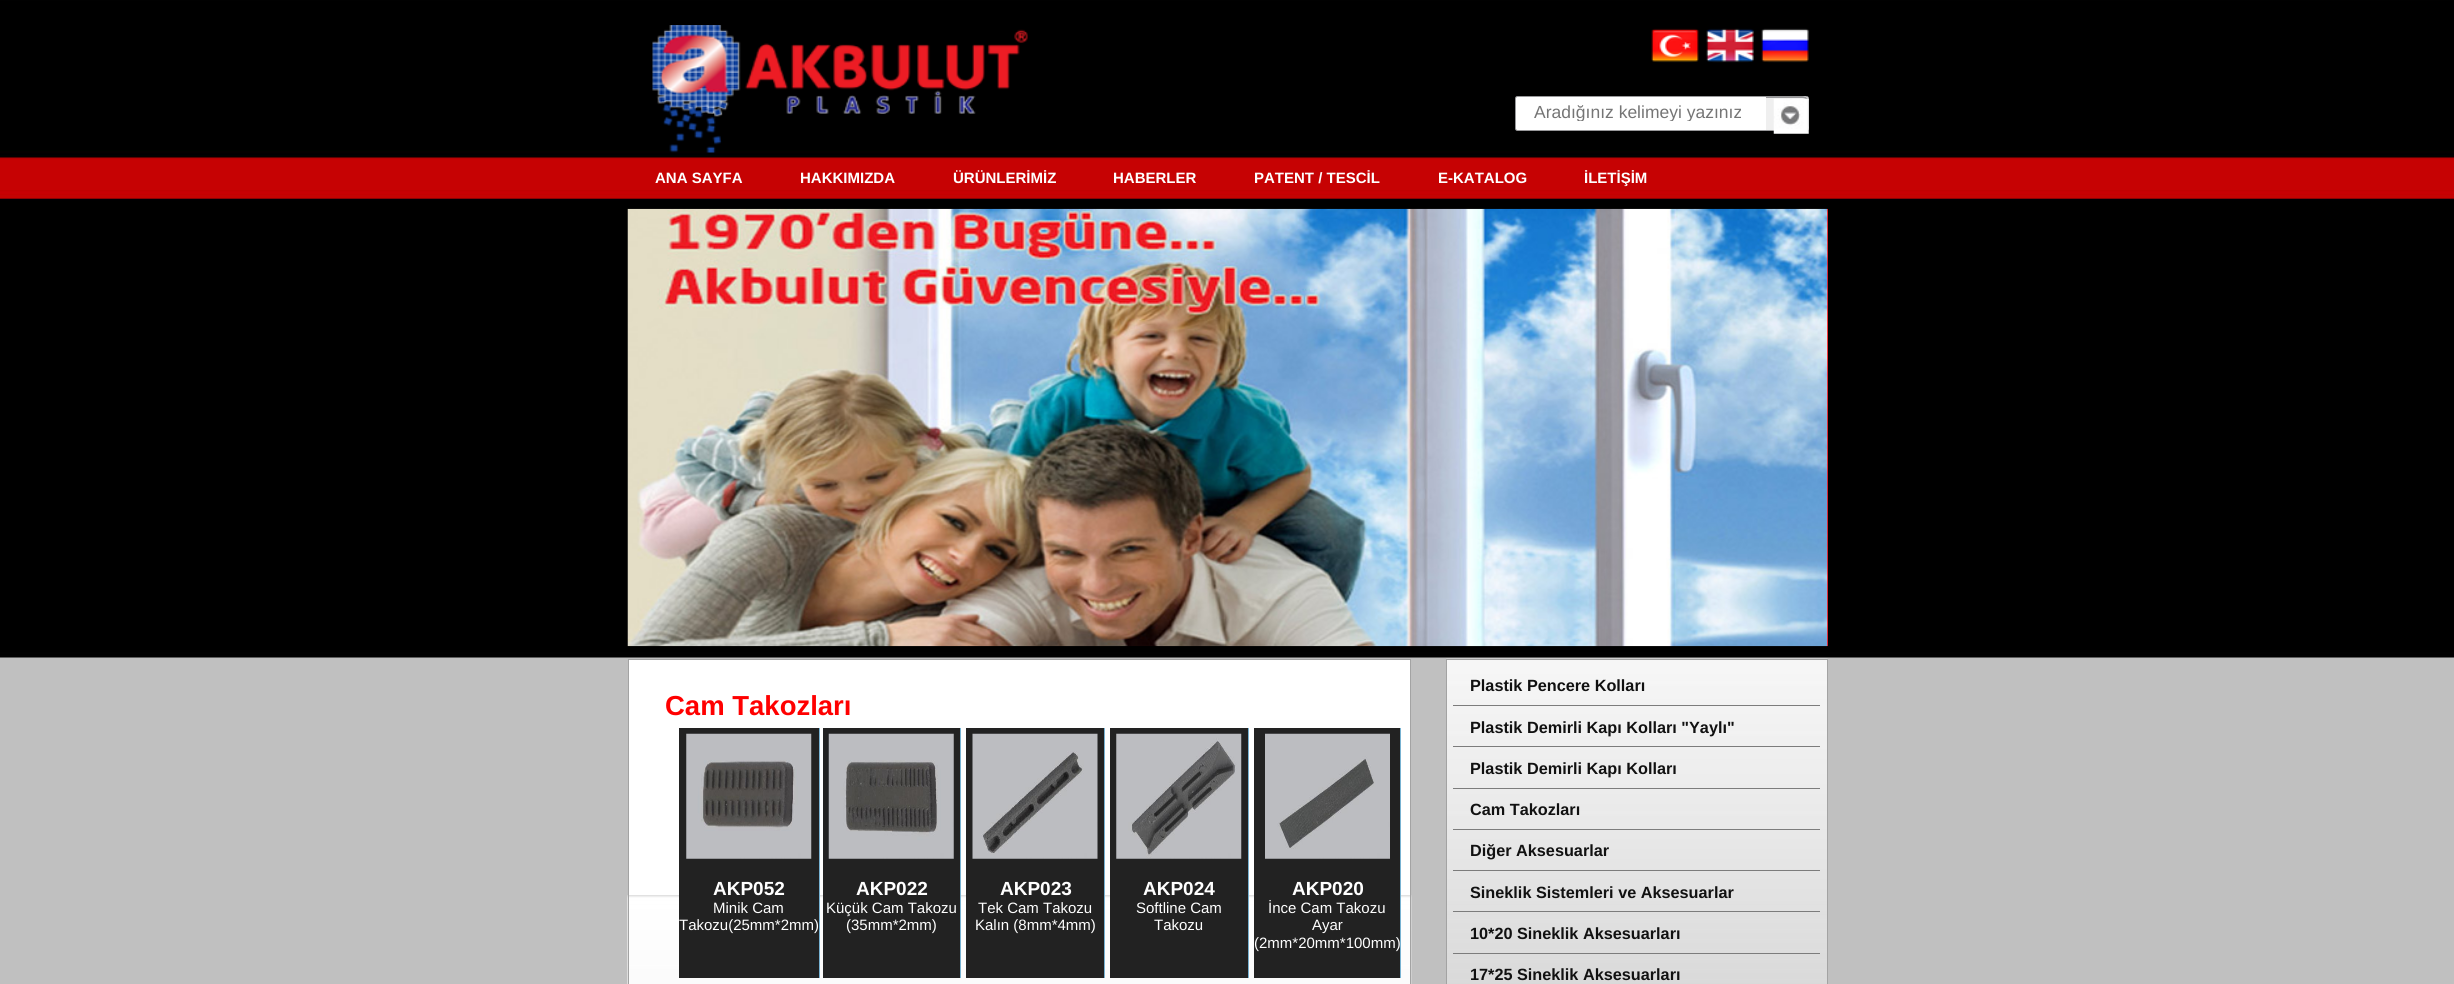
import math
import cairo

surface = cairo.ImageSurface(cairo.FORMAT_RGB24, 2454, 984)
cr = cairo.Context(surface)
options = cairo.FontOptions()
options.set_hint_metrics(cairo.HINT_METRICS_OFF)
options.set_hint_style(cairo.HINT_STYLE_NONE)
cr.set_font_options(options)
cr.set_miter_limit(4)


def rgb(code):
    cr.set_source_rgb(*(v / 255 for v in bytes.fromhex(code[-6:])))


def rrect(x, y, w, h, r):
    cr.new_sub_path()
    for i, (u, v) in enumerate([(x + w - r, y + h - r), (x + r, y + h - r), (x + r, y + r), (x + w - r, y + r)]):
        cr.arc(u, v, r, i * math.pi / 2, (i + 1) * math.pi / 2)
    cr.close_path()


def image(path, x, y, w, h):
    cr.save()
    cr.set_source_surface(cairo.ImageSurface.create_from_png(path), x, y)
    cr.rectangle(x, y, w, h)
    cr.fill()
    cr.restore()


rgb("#c0c0c0")
cr.paint()
image("img/1.png", 0, 0, 2454, 658)
image("img/2.png", 652, 25, 376, 128)
image("img/3.png", 1651, 28, 48, 35)
image("img/4.png", 1706, 28, 48, 35)
image("img/5.png", 1761, 28, 48, 35)
rgb("#ffffff")
rrect(1515.5, 96.5, 293, 34, 2)
cr.fill_preserve()
rgb("#98989a")
cr.set_line_width(1)
cr.stroke()
rgb("#efefef")
cr.new_path()
cr.move_to(1766, 96)
cr.line_to(1803, 96)
cr.curve_to(1806.5, 96, 1809, 98.5, 1809, 102)
cr.line_to(1809, 125)
cr.curve_to(1809, 128.5, 1806.5, 131, 1803, 131)
cr.line_to(1766, 131)
cr.close_path()
cr.fill()
rgb("#98989a")
cr.set_fill_rule(cairo.FILL_RULE_EVEN_ODD)
cr.new_path()
cr.move_to(1766, 96)
cr.line_to(1802, 96)
cr.curve_to(1806, 96, 1809, 99, 1809, 102)
cr.line_to(1809, 125)
cr.curve_to(1809, 128, 1806, 131, 1802, 131)
cr.line_to(1766, 131)
cr.close_path()
cr.move_to(1766, 98)
cr.line_to(1802, 98)
cr.curve_to(1805, 98, 1808, 100, 1808, 102)
cr.line_to(1808, 125)
cr.curve_to(1808, 128, 1805, 130, 1802, 130)
cr.line_to(1766, 130)
cr.close_path()
cr.fill()
image("img/6.png", 1773, 98, 36, 36)
rgb("#ff0000")
cr.rectangle(1827, 209, 1, 437)
cr.fill()
image("img/7.png", 627, 208, 1201, 439)
rgb("#ffffff")
cr.rectangle(629, 660, 781, 235)
cr.fill()
image("img/8.png", 627, 895, 785, 89)
cr.rectangle(628.5, 659.5, 782, 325)
rgb("#a3a3a3")
cr.stroke()
rgb("#222222")
cr.rectangle(679, 728, 140, 250)
cr.fill()
rgb("#77b2d2")
cr.rectangle(819, 728, 1, 250)
cr.fill()
image("img/9.png", 686, 733, 126, 126)
rgb("#222222")
cr.rectangle(823, 728, 137, 250)
cr.fill()
rgb("#77b2d2")
cr.rectangle(960, 728, 1, 250)
cr.fill()
image("img/10.png", 828, 733, 126, 126)
rgb("#222222")
cr.rectangle(966, 728, 138, 250)
cr.fill()
rgb("#77b2d2")
cr.rectangle(1104, 728, 1, 250)
cr.fill()
image("img/11.png", 972, 733, 126, 126)
rgb("#222222")
cr.rectangle(1110, 728, 138, 250)
cr.fill()
rgb("#77b2d2")
cr.rectangle(1248, 728, 1, 250)
cr.fill()
image("img/12.png", 1116, 733, 126, 126)
rgb("#222222")
cr.rectangle(1254, 728, 146, 250)
cr.fill()
rgb("#77b2d2")
cr.rectangle(1400, 728, 1, 250)
cr.fill()
image("img/13.png", 1265, 733, 125, 126)
image("img/14.png", 1446, 658, 382, 326)
cr.rectangle(1446.5, 659.5, 381, 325)
rgb("#a3a3a3")
cr.stroke()
for x, y, w, h, color in [
    (1453, 705, 367, 1, "#7c7c7c"),
    (1453, 746, 367, 1, "#7c7c7c"),
    (1453, 788, 367, 1, "#7c7c7c"),
    (1453, 829, 367, 1, "#7c7c7c"),
    (1453, 870, 367, 1, "#7c7c7c"),
    (1453, 911, 367, 1, "#7c7c7c"),
    (1453, 953, 367, 1, "#7c7c7c"),
]:
    rgb(color)
    cr.rectangle(x, y, w, h)
    cr.fill()
cr.save()
cr.set_fill_rule(cairo.FILL_RULE_WINDING)
cr.rectangle(1534, 101, 262, 20)
cr.clip()
cr.select_font_face("Liberation Sans")
cr.set_font_size(17.5)
rgb("#757575")
cr.move_to(1534, 118)
cr.show_text("Aradığınız kelimeyi yazınız")
cr.restore()
cr.select_font_face("Liberation Sans", cairo.FONT_SLANT_NORMAL, cairo.FONT_WEIGHT_BOLD)
cr.set_font_size(15)
rgb("#ffffff")
for x, y, s in [
    (655, 183, "ANA SAYFA"),
    (800, 183, "HAKKIMIZDA"),
    (953, 183, "ÜRÜNLERİMİZ"),
    (1113, 183, "HABERLER"),
    (1254, 183, "PATENT / TESCİL"),
    (1438, 183, "E-KATALOG"),
    (1584, 183, "İLETİŞİM"),
]:
    cr.move_to(x, y)
    cr.show_text(s)
cr.set_font_size(27.5)
rgb("#ff0000")
cr.move_to(665, 715)
cr.show_text("Cam Takozları")
cr.set_font_size(19)
rgb("#ffffff")
cr.move_to(713, 895)
cr.show_text("AKP052")
cr.select_font_face("Liberation Sans")
cr.set_font_size(15)
cr.move_to(713, 913)
cr.show_text("Minik Cam")
cr.move_to(679, 930)
cr.show_text("Takozu(25mm*2mm)")
cr.select_font_face("Liberation Sans", cairo.FONT_SLANT_NORMAL, cairo.FONT_WEIGHT_BOLD)
cr.set_font_size(19)
cr.move_to(856, 895)
cr.show_text("AKP022")
cr.select_font_face("Liberation Sans")
cr.set_font_size(15)
cr.move_to(826, 913)
cr.show_text("Küçük Cam Takozu")
cr.move_to(846, 930)
cr.show_text("(35mm*2mm)")
cr.select_font_face("Liberation Sans", cairo.FONT_SLANT_NORMAL, cairo.FONT_WEIGHT_BOLD)
cr.set_font_size(19)
cr.move_to(1000, 895)
cr.show_text("AKP023")
cr.select_font_face("Liberation Sans")
cr.set_font_size(15)
cr.move_to(978, 913)
cr.show_text("Tek Cam Takozu")
cr.move_to(975, 930)
cr.show_text("Kalın (8mm*4mm)")
cr.select_font_face("Liberation Sans", cairo.FONT_SLANT_NORMAL, cairo.FONT_WEIGHT_BOLD)
cr.set_font_size(19)
cr.move_to(1143, 895)
cr.show_text("AKP024")
cr.select_font_face("Liberation Sans")
cr.set_font_size(15)
cr.move_to(1136, 913)
cr.show_text("Softline Cam")
cr.move_to(1154, 930)
cr.show_text("Takozu")
cr.select_font_face("Liberation Sans", cairo.FONT_SLANT_NORMAL, cairo.FONT_WEIGHT_BOLD)
cr.set_font_size(19)
cr.move_to(1292, 895)
cr.show_text("AKP020")
cr.select_font_face("Liberation Sans")
cr.set_font_size(15)
for x, y, s in [
    (1268, 913, "İnce Cam Takozu"),
    (1312, 930, "Ayar"),
    (1254, 948, "(2mm*20mm*100mm)"),
]:
    cr.move_to(x, y)
    cr.show_text(s)
cr.select_font_face("Liberation Sans", cairo.FONT_SLANT_NORMAL, cairo.FONT_WEIGHT_BOLD)
cr.set_font_size(16.25)
rgb("#111111")
for x, y, s in [
    (1470, 691, "Plastik Pencere Kolları"),
    (1470, 733, "Plastik Demirli Kapı Kolları \"Yaylı\""),
    (1470, 774, "Plastik Demirli Kapı Kolları"),
    (1470, 815, "Cam Takozları"),
    (1470, 856, "Diğer Aksesuarlar"),
    (1470, 898, "Sineklik Sistemleri ve Aksesuarlar"),
    (1470, 939, "10*20 Sineklik Aksesuarları"),
    (1470, 980, "17*25 Sineklik Aksesuarları"),
]:
    cr.move_to(x, y)
    cr.show_text(s)
surface.write_to_png("page.png")
